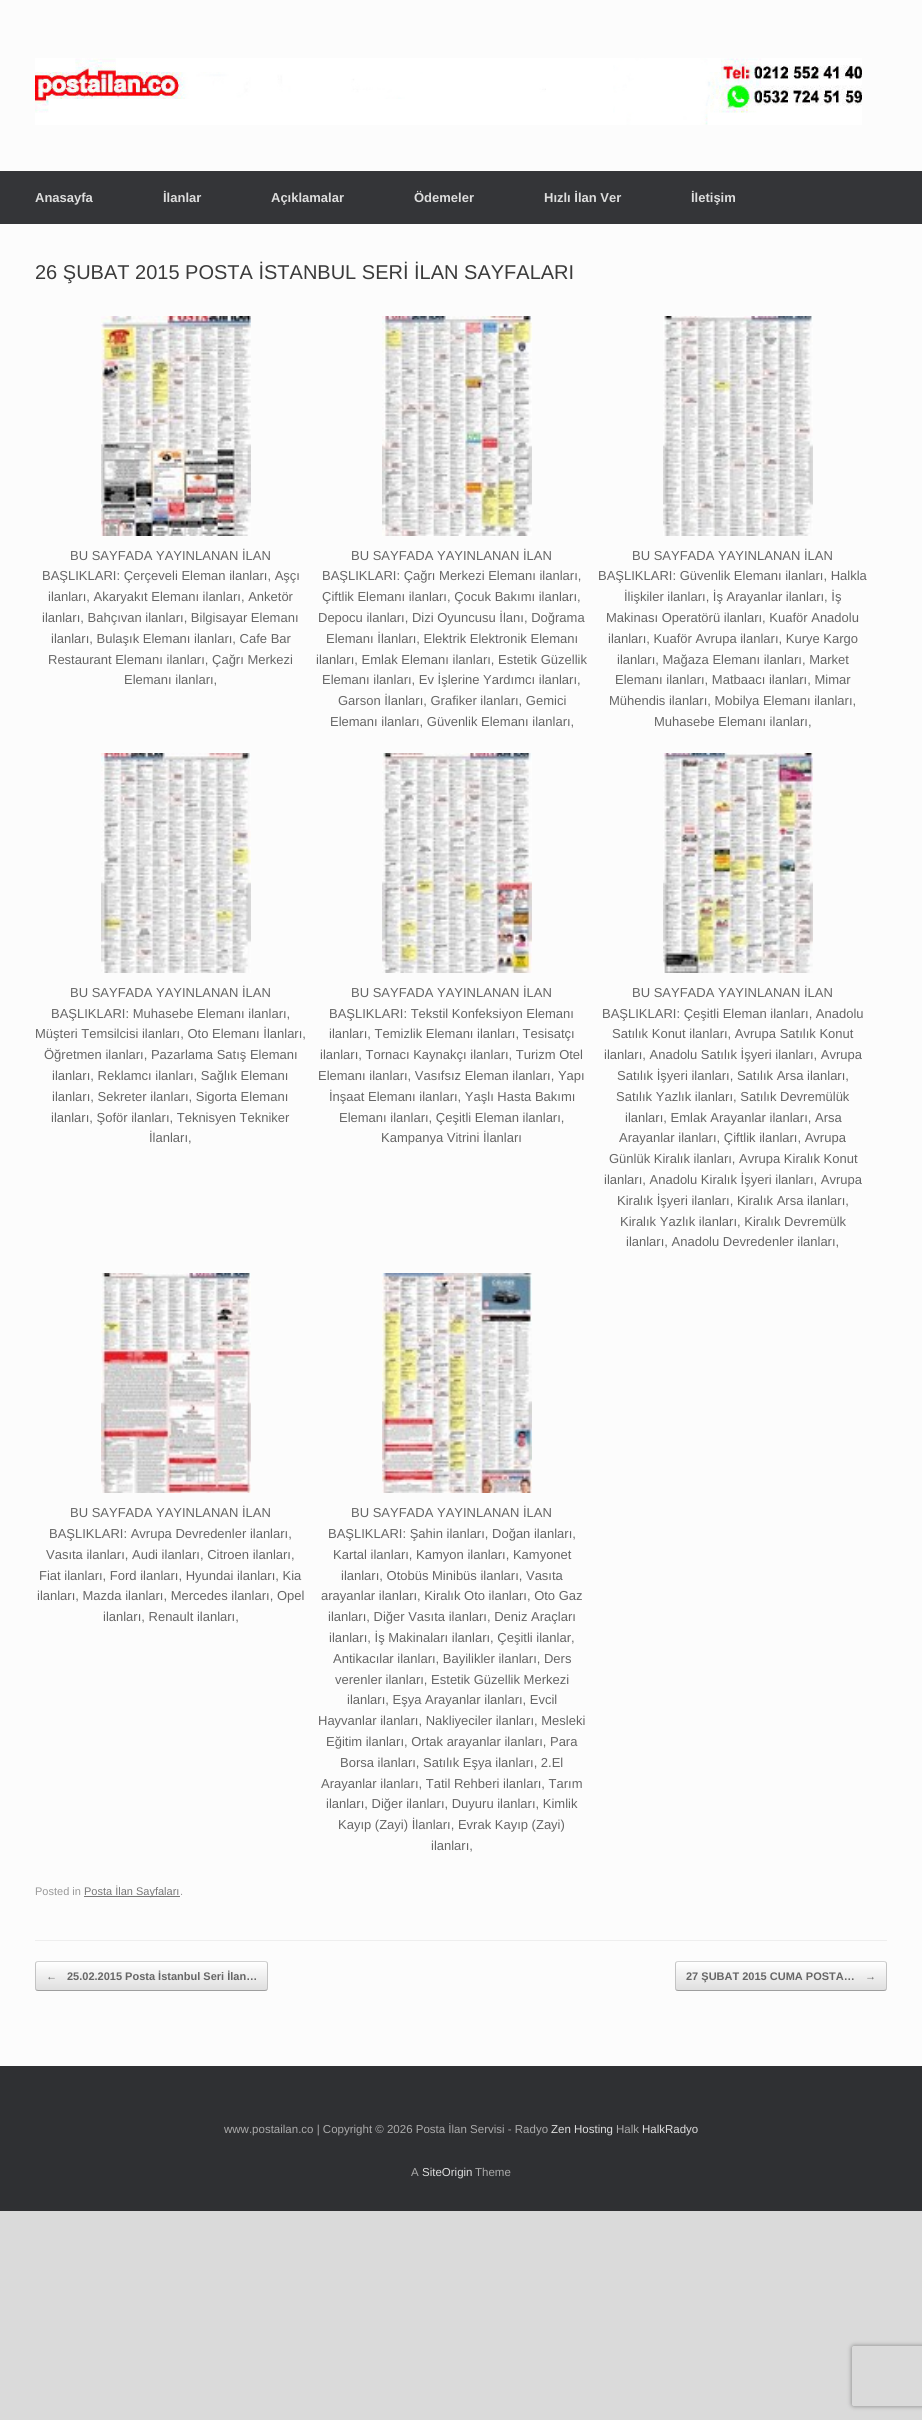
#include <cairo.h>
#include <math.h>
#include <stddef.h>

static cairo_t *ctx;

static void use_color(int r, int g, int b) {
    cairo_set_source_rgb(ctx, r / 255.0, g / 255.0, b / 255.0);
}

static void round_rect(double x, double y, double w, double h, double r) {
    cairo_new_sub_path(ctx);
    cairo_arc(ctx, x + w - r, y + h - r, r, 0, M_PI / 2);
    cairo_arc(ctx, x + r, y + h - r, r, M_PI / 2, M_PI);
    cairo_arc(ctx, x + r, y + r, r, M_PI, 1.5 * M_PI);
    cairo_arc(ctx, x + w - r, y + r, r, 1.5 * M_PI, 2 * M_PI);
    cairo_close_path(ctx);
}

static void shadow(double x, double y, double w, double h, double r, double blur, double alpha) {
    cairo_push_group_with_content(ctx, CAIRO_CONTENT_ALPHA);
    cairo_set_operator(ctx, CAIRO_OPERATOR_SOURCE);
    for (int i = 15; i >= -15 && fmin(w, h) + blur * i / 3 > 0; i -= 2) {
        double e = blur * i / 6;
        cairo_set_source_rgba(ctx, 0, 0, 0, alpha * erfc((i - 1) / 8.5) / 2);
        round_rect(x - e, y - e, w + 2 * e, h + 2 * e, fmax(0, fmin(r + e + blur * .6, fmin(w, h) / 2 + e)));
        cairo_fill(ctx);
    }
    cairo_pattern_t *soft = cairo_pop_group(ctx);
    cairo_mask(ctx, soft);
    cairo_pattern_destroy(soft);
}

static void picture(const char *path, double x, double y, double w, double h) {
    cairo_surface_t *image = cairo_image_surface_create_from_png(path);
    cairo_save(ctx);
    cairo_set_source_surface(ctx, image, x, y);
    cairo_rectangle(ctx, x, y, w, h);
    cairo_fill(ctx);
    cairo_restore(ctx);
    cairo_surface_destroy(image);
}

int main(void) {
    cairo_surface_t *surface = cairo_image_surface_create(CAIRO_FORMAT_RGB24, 922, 2420);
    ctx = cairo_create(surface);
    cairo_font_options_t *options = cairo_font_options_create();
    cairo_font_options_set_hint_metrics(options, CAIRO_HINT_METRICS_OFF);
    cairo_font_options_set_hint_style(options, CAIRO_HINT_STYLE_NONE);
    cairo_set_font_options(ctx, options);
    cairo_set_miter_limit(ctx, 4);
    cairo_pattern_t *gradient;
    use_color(218, 218, 218);
    cairo_paint(ctx);
    use_color(252, 252, 252);
    cairo_rectangle(ctx, 0, 0, 922, 171);
    cairo_fill(ctx);
    picture("img1.png", 35, 58, 827, 67);
    use_color(52, 53, 56);
    cairo_rectangle(ctx, 0, 171, 922, 53);
    cairo_fill(ctx);
    cairo_select_font_face(ctx, "Liberation Sans", CAIRO_FONT_SLANT_NORMAL, CAIRO_FONT_WEIGHT_BOLD);
    cairo_set_font_size(ctx, 13);
    use_color(221, 221, 221);
    cairo_move_to(ctx, 35, 202);
    cairo_show_text(ctx, "Anasayfa");
    cairo_move_to(ctx, 163, 202);
    cairo_show_text(ctx, "İlanlar");
    cairo_move_to(ctx, 271, 202);
    cairo_show_text(ctx, "Açıklamalar");
    cairo_move_to(ctx, 414, 202);
    cairo_show_text(ctx, "Ödemeler");
    cairo_move_to(ctx, 544, 202);
    cairo_show_text(ctx, "Hızlı İlan Ver");
    cairo_move_to(ctx, 691, 202);
    cairo_show_text(ctx, "İletişim");
    use_color(252, 252, 252);
    cairo_rectangle(ctx, 0, 224, 922, 1842);
    cairo_fill(ctx);
    use_color(238, 238, 238);
    cairo_rectangle(ctx, 35, 1940, 852, 1);
    cairo_fill(ctx);
    cairo_select_font_face(ctx, "Liberation Sans", CAIRO_FONT_SLANT_NORMAL, CAIRO_FONT_WEIGHT_NORMAL);
    cairo_set_font_size(ctx, 20);
    use_color(59, 59, 59);
    cairo_move_to(ctx, 35, 279);
    cairo_show_text(ctx, "26 ŞUBAT 2015 POSTA İSTANBUL SERİ İLAN SAYFALARI");
    picture("img2.png", 101, 316, 150, 220);
    cairo_set_font_size(ctx, 13);
    use_color(102, 102, 102);
    cairo_move_to(ctx, 70, 560);
    cairo_show_text(ctx, "BU SAYFADA YAYINLANAN İLAN");
    cairo_move_to(ctx, 42, 580);
    cairo_show_text(ctx, "BAŞLIKLARI: Çerçeveli Eleman ilanları, Aşçı");
    cairo_move_to(ctx, 48, 601);
    cairo_show_text(ctx, "ilanları, Akaryakıt Elemanı ilanları, Anketör");
    cairo_move_to(ctx, 42, 622);
    cairo_show_text(ctx, "ilanları, Bahçıvan ilanları, Bilgisayar Elemanı");
    cairo_move_to(ctx, 51, 643);
    cairo_show_text(ctx, "ilanları, Bulaşık Elemanı ilanları, Cafe Bar");
    cairo_move_to(ctx, 48, 664);
    cairo_show_text(ctx, "Restaurant Elemanı ilanları, Çağrı Merkezi");
    cairo_move_to(ctx, 124, 684);
    cairo_show_text(ctx, "Elemanı ilanları,");
    picture("img3.png", 382, 316, 150, 220);
    cairo_move_to(ctx, 351, 560);
    cairo_show_text(ctx, "BU SAYFADA YAYINLANAN İLAN");
    cairo_move_to(ctx, 322, 580);
    cairo_show_text(ctx, "BAŞLIKLARI: Çağrı Merkezi Elemanı ilanları,");
    cairo_move_to(ctx, 322, 601);
    cairo_show_text(ctx, "Çiftlik Elemanı ilanları, Çocuk Bakımı ilanları,");
    cairo_move_to(ctx, 318, 622);
    cairo_show_text(ctx, "Depocu ilanları, Dizi Oyuncusu İlanı, Doğrama");
    cairo_move_to(ctx, 326, 643);
    cairo_show_text(ctx, "Elemanı İlanları, Elektrik Elektronik Elemanı");
    cairo_move_to(ctx, 316, 664);
    cairo_show_text(ctx, "ilanları, Emlak Elemanı ilanları, Estetik Güzellik");
    cairo_move_to(ctx, 322, 684);
    cairo_show_text(ctx, "Elemanı ilanları, Ev İşlerine Yardımcı ilanları,");
    cairo_move_to(ctx, 338, 705);
    cairo_show_text(ctx, "Garson İlanları, Grafiker ilanları, Gemici");
    cairo_move_to(ctx, 330, 726);
    cairo_show_text(ctx, "Elemanı ilanları, Güvenlik Elemanı ilanları,");
    picture("img4.png", 663, 316, 150, 220);
    cairo_move_to(ctx, 632, 560);
    cairo_show_text(ctx, "BU SAYFADA YAYINLANAN İLAN");
    cairo_move_to(ctx, 598, 580);
    cairo_show_text(ctx, "BAŞLIKLARI: Güvenlik Elemanı ilanları, Halkla");
    cairo_move_to(ctx, 624, 601);
    cairo_show_text(ctx, "İlişkiler ilanları, İş Arayanlar ilanları, İş");
    cairo_move_to(ctx, 606, 622);
    cairo_show_text(ctx, "Makinası Operatörü ilanları, Kuaför Anadolu");
    cairo_move_to(ctx, 608, 643);
    cairo_show_text(ctx, "ilanları, Kuaför Avrupa ilanları, Kurye Kargo");
    cairo_move_to(ctx, 617, 664);
    cairo_show_text(ctx, "ilanları, Mağaza Elemanı ilanları, Market");
    cairo_move_to(ctx, 615, 684);
    cairo_show_text(ctx, "Elemanı ilanları, Matbaacı ilanları, Mimar");
    cairo_move_to(ctx, 609, 705);
    cairo_show_text(ctx, "Mühendis ilanları, Mobilya Elemanı ilanları,");
    cairo_move_to(ctx, 654, 726);
    cairo_show_text(ctx, "Muhasebe Elemanı ilanları,");
    picture("img5.png", 101, 753, 150, 220);
    cairo_move_to(ctx, 70, 997);
    cairo_show_text(ctx, "BU SAYFADA YAYINLANAN İLAN");
    cairo_move_to(ctx, 51, 1018);
    cairo_show_text(ctx, "BAŞLIKLARI: Muhasebe Elemanı ilanları,");
    cairo_move_to(ctx, 35, 1038);
    cairo_show_text(ctx, "Müşteri Temsilcisi ilanları, Oto Elemanı İlanları,");
    cairo_move_to(ctx, 44, 1059);
    cairo_show_text(ctx, "Öğretmen ilanları, Pazarlama Satış Elemanı");
    cairo_move_to(ctx, 52, 1080);
    cairo_show_text(ctx, "ilanları, Reklamcı ilanları, Sağlık Elemanı");
    cairo_move_to(ctx, 52, 1101);
    cairo_show_text(ctx, "ilanları, Sekreter ilanları, Sigorta Elemanı");
    cairo_move_to(ctx, 51, 1122);
    cairo_show_text(ctx, "ilanları, Şoför ilanları, Teknisyen Tekniker");
    cairo_move_to(ctx, 149, 1142);
    cairo_show_text(ctx, "İlanları,");
    picture("img6.png", 382, 753, 150, 220);
    cairo_move_to(ctx, 351, 997);
    cairo_show_text(ctx, "BU SAYFADA YAYINLANAN İLAN");
    cairo_move_to(ctx, 329, 1018);
    cairo_show_text(ctx, "BAŞLIKLARI: Tekstil Konfeksiyon Elemanı");
    cairo_move_to(ctx, 329, 1038);
    cairo_show_text(ctx, "ilanları, Temizlik Elemanı ilanları, Tesisatçı");
    cairo_move_to(ctx, 320, 1059);
    cairo_show_text(ctx, "ilanları, Tornacı Kaynakçı ilanları, Turizm Otel");
    cairo_move_to(ctx, 318, 1080);
    cairo_show_text(ctx, "Elemanı ilanları, Vasıfsız Eleman ilanları, Yapı");
    cairo_move_to(ctx, 329, 1101);
    cairo_show_text(ctx, "İnşaat Elemanı ilanları, Yaşlı Hasta Bakımı");
    cairo_move_to(ctx, 339, 1122);
    cairo_show_text(ctx, "Elemanı ilanları, Çeşitli Eleman ilanları,");
    cairo_move_to(ctx, 381, 1142);
    cairo_show_text(ctx, "Kampanya Vitrini İlanları");
    picture("img7.png", 663, 753, 150, 220);
    cairo_move_to(ctx, 632, 997);
    cairo_show_text(ctx, "BU SAYFADA YAYINLANAN İLAN");
    cairo_move_to(ctx, 602, 1018);
    cairo_show_text(ctx, "BAŞLIKLARI: Çeşitli Eleman ilanları, Anadolu");
    cairo_move_to(ctx, 612, 1038);
    cairo_show_text(ctx, "Satılık Konut ilanları, Avrupa Satılık Konut");
    cairo_move_to(ctx, 604, 1059);
    cairo_show_text(ctx, "ilanları, Anadolu Satılık İşyeri ilanları, Avrupa");
    cairo_move_to(ctx, 617, 1080);
    cairo_show_text(ctx, "Satılık İşyeri ilanları, Satılık Arsa ilanları,");
    cairo_move_to(ctx, 616, 1101);
    cairo_show_text(ctx, "Satılık Yazlık ilanları, Satılık Devremülük");
    cairo_move_to(ctx, 625, 1122);
    cairo_show_text(ctx, "ilanları, Emlak Arayanlar ilanları, Arsa");
    cairo_move_to(ctx, 619, 1142);
    cairo_show_text(ctx, "Arayanlar ilanları, Çiftlik ilanları, Avrupa");
    cairo_move_to(ctx, 609, 1163);
    cairo_show_text(ctx, "Günlük Kiralık ilanları, Avrupa Kiralık Konut");
    cairo_move_to(ctx, 604, 1184);
    cairo_show_text(ctx, "ilanları, Anadolu Kiralık İşyeri ilanları, Avrupa");
    cairo_move_to(ctx, 617, 1205);
    cairo_show_text(ctx, "Kiralık İşyeri ilanları, Kiralık Arsa ilanları,");
    cairo_move_to(ctx, 620, 1226);
    cairo_show_text(ctx, "Kiralık Yazlık ilanları, Kiralık Devremülk");
    cairo_move_to(ctx, 626, 1246);
    cairo_show_text(ctx, "ilanları, Anadolu Devredenler ilanları,");
    picture("img8.png", 101, 1273, 150, 220);
    cairo_move_to(ctx, 70, 1517);
    cairo_show_text(ctx, "BU SAYFADA YAYINLANAN İLAN");
    cairo_move_to(ctx, 49, 1538);
    cairo_show_text(ctx, "BAŞLIKLARI: Avrupa Devredenler ilanları,");
    cairo_move_to(ctx, 46, 1559);
    cairo_show_text(ctx, "Vasıta ilanları, Audi ilanları, Citroen ilanları,");
    cairo_move_to(ctx, 39, 1580);
    cairo_show_text(ctx, "Fiat ilanları, Ford ilanları, Hyundai ilanları, Kia");
    cairo_move_to(ctx, 37, 1600);
    cairo_show_text(ctx, "ilanları, Mazda ilanları, Mercedes ilanları, Opel");
    cairo_move_to(ctx, 103, 1621);
    cairo_show_text(ctx, "ilanları, Renault ilanları,");
    picture("img9.png", 382, 1273, 150, 220);
    cairo_move_to(ctx, 351, 1517);
    cairo_show_text(ctx, "BU SAYFADA YAYINLANAN İLAN");
    cairo_move_to(ctx, 328, 1538);
    cairo_show_text(ctx, "BAŞLIKLARI: Şahin ilanları, Doğan ilanları,");
    cairo_move_to(ctx, 333, 1559);
    cairo_show_text(ctx, "Kartal ilanları, Kamyon ilanları, Kamyonet");
    cairo_move_to(ctx, 341, 1580);
    cairo_show_text(ctx, "ilanları, Otobüs Minibüs ilanları, Vasıta");
    cairo_move_to(ctx, 321, 1600);
    cairo_show_text(ctx, "arayanlar ilanları, Kiralık Oto ilanları, Oto Gaz");
    cairo_move_to(ctx, 328, 1621);
    cairo_show_text(ctx, "ilanları, Diğer Vasıta ilanları, Deniz Araçları");
    cairo_move_to(ctx, 329, 1642);
    cairo_show_text(ctx, "ilanları, İş Makinaları ilanları, Çeşitli ilanlar,");
    cairo_move_to(ctx, 333, 1663);
    cairo_show_text(ctx, "Antikacılar ilanları, Bayilikler ilanları, Ders");
    cairo_move_to(ctx, 335, 1684);
    cairo_show_text(ctx, "verenler ilanları, Estetik Güzellik Merkezi");
    cairo_move_to(ctx, 347, 1704);
    cairo_show_text(ctx, "ilanları, Eşya Arayanlar ilanları, Evcil");
    cairo_move_to(ctx, 318, 1725);
    cairo_show_text(ctx, "Hayvanlar ilanları, Nakliyeciler ilanları, Mesleki");
    cairo_move_to(ctx, 326, 1746);
    cairo_show_text(ctx, "Eğitim ilanları, Ortak arayanlar ilanları, Para");
    cairo_move_to(ctx, 340, 1767);
    cairo_show_text(ctx, "Borsa ilanları, Satılık Eşya ilanları, 2.El");
    cairo_move_to(ctx, 321, 1788);
    cairo_show_text(ctx, "Arayanlar ilanları, Tatil Rehberi ilanları, Tarım");
    cairo_move_to(ctx, 326, 1808);
    cairo_show_text(ctx, "ilanları, Diğer ilanları, Duyuru ilanları, Kimlik");
    cairo_move_to(ctx, 338, 1829);
    cairo_show_text(ctx, "Kayıp (Zayi) İlanları, Evrak Kayıp (Zayi)");
    cairo_move_to(ctx, 431, 1850);
    cairo_show_text(ctx, "ilanları,");
    cairo_set_font_size(ctx, 11);
    use_color(153, 153, 153);
    cairo_move_to(ctx, 35, 1895);
    cairo_show_text(ctx, "Posted in");
    use_color(119, 119, 119);
    cairo_rectangle(ctx, 84, 1896, 96, 1);
    cairo_fill(ctx);
    cairo_move_to(ctx, 84, 1895);
    cairo_show_text(ctx, "Posta İlan Sayfaları");
    use_color(153, 153, 153);
    cairo_move_to(ctx, 180, 1895);
    cairo_show_text(ctx, ".");
    cairo_save(ctx);
    round_rect(35, 1961, 233, 30, 3);
    cairo_clip(ctx);
    gradient = cairo_pattern_create_linear(36, 1990, 36, 1962);
    cairo_pattern_add_color_stop_rgba(gradient, 0, 0.875, 0.875, 0.875, 1);
    cairo_pattern_add_color_stop_rgba(gradient, 1, 1, 1, 1, 1);
    cairo_set_source(ctx, gradient);
    cairo_pattern_destroy(gradient);
    cairo_rectangle(ctx, 35, 1962, 233, 28);
    cairo_fill(ctx);
    cairo_restore(ctx);
    cairo_new_path(ctx);
    cairo_move_to(ctx, 36, 1962);
    cairo_line_to(ctx, 38, 1961.5);
    cairo_line_to(ctx, 265, 1961.5);
    cairo_line_to(ctx, 267, 1962);
    use_color(210, 210, 210);
    cairo_set_line_width(ctx, 1);
    cairo_stroke(ctx);
    cairo_new_path(ctx);
    cairo_move_to(ctx, 267, 1962);
    cairo_curve_to(ctx, 267, 1962.5, 267.5, 1963.5, 267.5, 1964);
    cairo_line_to(ctx, 267.5, 1988);
    cairo_curve_to(ctx, 267.5, 1988.5, 267, 1989.5, 267, 1990);
    use_color(195, 195, 195);
    cairo_stroke(ctx);
    cairo_new_path(ctx);
    cairo_move_to(ctx, 267, 1990);
    cairo_line_to(ctx, 265, 1990.5);
    cairo_line_to(ctx, 38, 1990.5);
    cairo_line_to(ctx, 36, 1990);
    use_color(159, 159, 159);
    cairo_stroke(ctx);
    cairo_new_path(ctx);
    cairo_move_to(ctx, 36, 1990);
    cairo_curve_to(ctx, 36, 1989.5, 35.5, 1988.5, 35.5, 1988);
    cairo_line_to(ctx, 35.5, 1964);
    cairo_curve_to(ctx, 35.5, 1963.5, 36, 1962.5, 36, 1962);
    use_color(195, 195, 195);
    cairo_stroke(ctx);
    cairo_select_font_face(ctx, "Liberation Sans", CAIRO_FONT_SLANT_NORMAL, CAIRO_FONT_WEIGHT_BOLD);
    use_color(102, 102, 102);
    cairo_move_to(ctx, 46, 1980);
    cairo_show_text(ctx, "←");
    cairo_move_to(ctx, 67, 1980);
    cairo_show_text(ctx, "25.02.2015 Posta İstanbul Seri İlan…");
    cairo_save(ctx);
    round_rect(675, 1961, 212, 30, 3);
    cairo_clip(ctx);
    gradient = cairo_pattern_create_linear(676, 1990, 676, 1962);
    cairo_pattern_add_color_stop_rgba(gradient, 0, 0.875, 0.875, 0.875, 1);
    cairo_pattern_add_color_stop_rgba(gradient, 1, 1, 1, 1, 1);
    cairo_set_source(ctx, gradient);
    cairo_pattern_destroy(gradient);
    cairo_rectangle(ctx, 675, 1962, 212, 28);
    cairo_fill(ctx);
    cairo_restore(ctx);
    cairo_new_path(ctx);
    cairo_move_to(ctx, 676, 1962);
    cairo_line_to(ctx, 678, 1961.5);
    cairo_line_to(ctx, 884, 1961.5);
    cairo_line_to(ctx, 886, 1962);
    use_color(210, 210, 210);
    cairo_stroke(ctx);
    cairo_new_path(ctx);
    cairo_move_to(ctx, 886, 1962);
    cairo_curve_to(ctx, 886, 1962.5, 886.5, 1963.5, 886.5, 1964);
    cairo_line_to(ctx, 886.5, 1988);
    cairo_curve_to(ctx, 886.5, 1988.5, 886, 1989.5, 886, 1990);
    use_color(195, 195, 195);
    cairo_stroke(ctx);
    cairo_new_path(ctx);
    cairo_move_to(ctx, 886, 1990);
    cairo_line_to(ctx, 884, 1990.5);
    cairo_line_to(ctx, 678, 1990.5);
    cairo_line_to(ctx, 676, 1990);
    use_color(159, 159, 159);
    cairo_stroke(ctx);
    cairo_new_path(ctx);
    cairo_move_to(ctx, 676, 1990);
    cairo_curve_to(ctx, 676, 1989.5, 675.5, 1988.5, 675.5, 1988);
    cairo_line_to(ctx, 675.5, 1964);
    cairo_curve_to(ctx, 675.5, 1963.5, 676, 1962.5, 676, 1962);
    use_color(195, 195, 195);
    cairo_stroke(ctx);
    use_color(102, 102, 102);
    cairo_move_to(ctx, 686, 1980);
    cairo_show_text(ctx, "27 ŞUBAT 2015 CUMA POSTA…");
    cairo_move_to(ctx, 865, 1980);
    cairo_show_text(ctx, "→");
    use_color(47, 48, 51);
    cairo_rectangle(ctx, 0, 2066, 922, 145);
    cairo_fill(ctx);
    cairo_select_font_face(ctx, "Liberation Sans", CAIRO_FONT_SLANT_NORMAL, CAIRO_FONT_WEIGHT_NORMAL);
    cairo_set_font_size(ctx, 11.5);
    use_color(170, 170, 170);
    cairo_move_to(ctx, 224, 2133);
    cairo_show_text(ctx, "www.postailan.co | Copyright © 2026 Posta İlan Servisi - Radyo");
    use_color(221, 221, 221);
    cairo_move_to(ctx, 551, 2133);
    cairo_show_text(ctx, "Zen Hosting");
    use_color(170, 170, 170);
    cairo_move_to(ctx, 616, 2133);
    cairo_show_text(ctx, "Halk");
    use_color(221, 221, 221);
    cairo_move_to(ctx, 642, 2133);
    cairo_show_text(ctx, "HalkRadyo");
    use_color(170, 170, 170);
    cairo_move_to(ctx, 411, 2176);
    cairo_show_text(ctx, "A");
    use_color(221, 221, 221);
    cairo_move_to(ctx, 422, 2176);
    cairo_show_text(ctx, "SiteOrigin");
    use_color(170, 170, 170);
    cairo_move_to(ctx, 475, 2176);
    cairo_show_text(ctx, "Theme");
    cairo_save(ctx);
    cairo_set_fill_rule(ctx, CAIRO_FILL_RULE_EVEN_ODD);
    cairo_new_path(ctx);
    cairo_move_to(ctx, 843, 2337);
    cairo_line_to(ctx, 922, 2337);
    cairo_line_to(ctx, 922, 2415);
    cairo_line_to(ctx, 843, 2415);
    cairo_close_path(ctx);
    cairo_move_to(ctx, 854, 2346);
    cairo_line_to(ctx, 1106, 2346);
    cairo_curve_to(ctx, 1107, 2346, 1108, 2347, 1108, 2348);
    cairo_line_to(ctx, 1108, 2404);
    cairo_curve_to(ctx, 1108, 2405, 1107, 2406, 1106, 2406);
    cairo_line_to(ctx, 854, 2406);
    cairo_curve_to(ctx, 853, 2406, 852, 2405, 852, 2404);
    cairo_line_to(ctx, 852, 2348);
    cairo_curve_to(ctx, 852, 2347, 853, 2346, 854, 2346);
    cairo_close_path(ctx);
    cairo_clip(ctx);
    use_color(128, 128, 128);
    shadow(852, 2346, 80, 60, 2, 2.5, 1);
    cairo_restore(ctx);
    cairo_surface_write_to_png(surface, "result.png");
    cairo_font_options_destroy(options);
    cairo_destroy(ctx);
    cairo_surface_destroy(surface);
    return 0;
}
